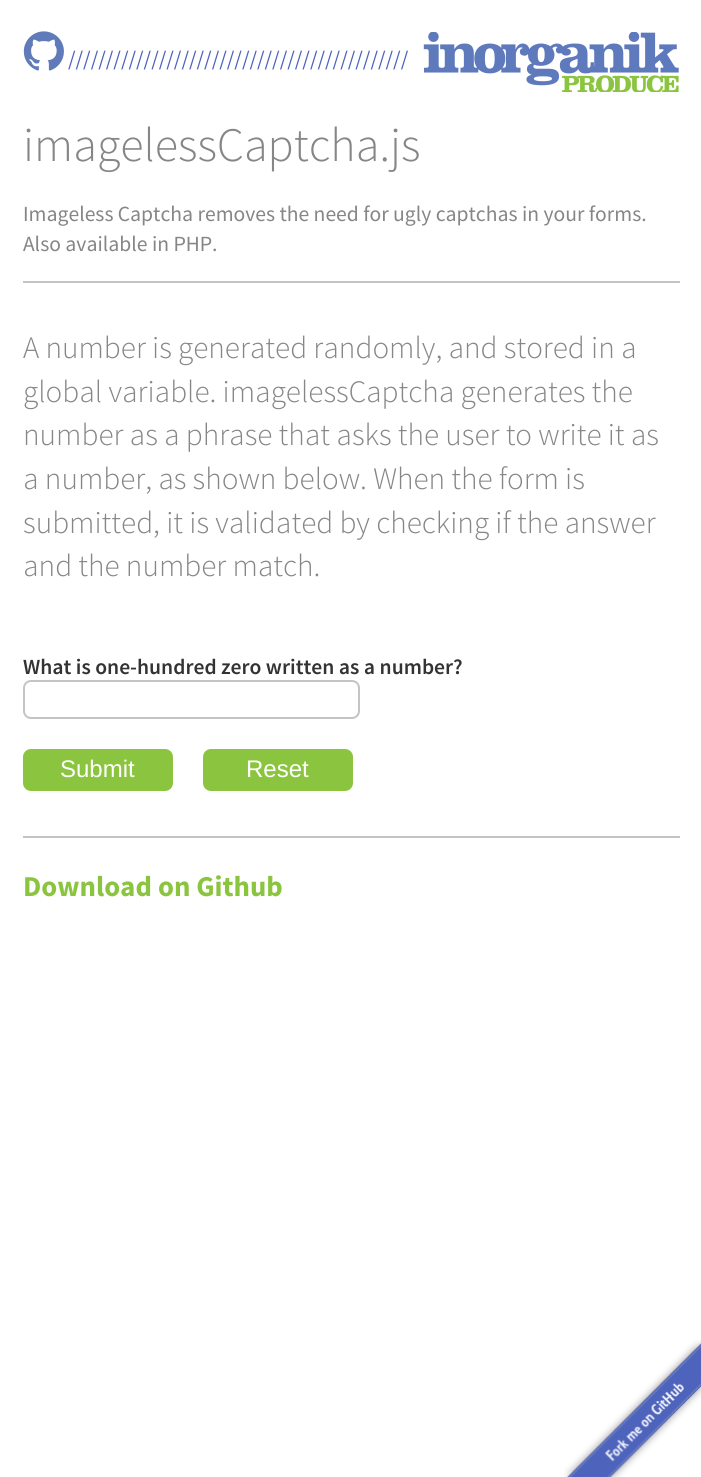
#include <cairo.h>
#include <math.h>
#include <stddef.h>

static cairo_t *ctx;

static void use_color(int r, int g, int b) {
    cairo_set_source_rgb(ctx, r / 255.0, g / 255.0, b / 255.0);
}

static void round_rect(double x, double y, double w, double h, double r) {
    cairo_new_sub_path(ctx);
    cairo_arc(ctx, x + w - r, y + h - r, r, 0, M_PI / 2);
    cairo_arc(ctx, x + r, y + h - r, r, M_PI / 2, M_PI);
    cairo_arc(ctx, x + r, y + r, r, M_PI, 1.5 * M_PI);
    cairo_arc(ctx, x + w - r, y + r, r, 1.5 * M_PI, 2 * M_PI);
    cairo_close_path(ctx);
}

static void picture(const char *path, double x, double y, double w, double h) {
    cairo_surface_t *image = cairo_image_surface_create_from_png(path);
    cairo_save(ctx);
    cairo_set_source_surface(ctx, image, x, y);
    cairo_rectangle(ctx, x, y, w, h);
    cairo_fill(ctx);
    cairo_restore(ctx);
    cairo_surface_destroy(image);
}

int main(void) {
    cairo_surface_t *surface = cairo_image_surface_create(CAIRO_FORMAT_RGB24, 701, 1477);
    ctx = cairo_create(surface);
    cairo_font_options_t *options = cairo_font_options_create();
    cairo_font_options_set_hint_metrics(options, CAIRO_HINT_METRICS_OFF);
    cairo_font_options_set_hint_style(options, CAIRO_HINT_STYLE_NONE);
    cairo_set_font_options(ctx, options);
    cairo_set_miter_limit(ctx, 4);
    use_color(255, 255, 255);
    cairo_paint(ctx);
    picture("img1.png", 23, 31, 41, 40);
    cairo_select_font_face(ctx, "Source Sans Pro", CAIRO_FONT_SLANT_NORMAL, CAIRO_FONT_WEIGHT_NORMAL);
    cairo_set_font_size(ctx, 21.6);
    use_color(77, 99, 188);
    cairo_move_to(ctx, 68, 66);
    cairo_show_text(ctx, "/////////////////////////////////////////////");
    picture("img2.png", 423, 32, 256, 60);
    use_color(196, 196, 196);
    cairo_rectangle(ctx, 23, 281, 657, 2);
    cairo_fill(ctx);
    cairo_select_font_face(ctx, "Source Sans Pro Light", CAIRO_FONT_SLANT_NORMAL, CAIRO_FONT_WEIGHT_NORMAL);
    cairo_set_font_size(ctx, 48);
    use_color(134, 134, 134);
    cairo_move_to(ctx, 23, 161);
    cairo_show_text(ctx, "imagelessCaptcha.js");
    cairo_select_font_face(ctx, "Source Sans Pro", CAIRO_FONT_SLANT_NORMAL, CAIRO_FONT_WEIGHT_NORMAL);
    cairo_set_font_size(ctx, 21.6);
    cairo_move_to(ctx, 23, 221);
    cairo_show_text(ctx, "Imageless Captcha removes the need for ugly captchas in your forms.");
    cairo_move_to(ctx, 23, 251);
    cairo_show_text(ctx, "Also available in PHP.");
    use_color(196, 196, 196);
    cairo_rectangle(ctx, 23, 836, 657, 2);
    cairo_fill(ctx);
    cairo_select_font_face(ctx, "Source Sans Pro Light", CAIRO_FONT_SLANT_NORMAL, CAIRO_FONT_WEIGHT_NORMAL);
    cairo_set_font_size(ctx, 31.2);
    use_color(134, 134, 134);
    cairo_move_to(ctx, 23, 358);
    cairo_show_text(ctx, "A number is generated randomly, and stored in a");
    cairo_move_to(ctx, 23, 402);
    cairo_show_text(ctx, "global variable. imagelessCaptcha generates the");
    cairo_move_to(ctx, 23, 445);
    cairo_show_text(ctx, "number as a phrase that asks the user to write it as");
    cairo_move_to(ctx, 23, 489);
    cairo_show_text(ctx, "a number, as shown below. When the form is");
    cairo_move_to(ctx, 23, 533);
    cairo_show_text(ctx, "submitted, it is validated by checking if the answer");
    cairo_move_to(ctx, 23, 576);
    cairo_show_text(ctx, "and the number match.");
    cairo_select_font_face(ctx, "Source Sans Pro SemiBold", CAIRO_FONT_SLANT_NORMAL, CAIRO_FONT_WEIGHT_NORMAL);
    cairo_set_font_size(ctx, 21.6);
    use_color(51, 51, 51);
    cairo_move_to(ctx, 23, 674);
    cairo_show_text(ctx, "What is one-hundred zero written as a number?");
    round_rect(24, 681, 335, 37, 7);
    use_color(196, 196, 196);
    cairo_stroke(ctx);
    use_color(139, 197, 63);
    round_rect(23, 749, 150, 42, 8);
    cairo_fill(ctx);
    cairo_select_font_face(ctx, "Liberation Sans", CAIRO_FONT_SLANT_NORMAL, CAIRO_FONT_WEIGHT_NORMAL);
    cairo_set_font_size(ctx, 24);
    use_color(255, 255, 255);
    cairo_move_to(ctx, 60, 777);
    cairo_show_text(ctx, "Submit");
    use_color(139, 197, 63);
    round_rect(203, 749, 150, 42, 8);
    cairo_fill(ctx);
    use_color(255, 255, 255);
    cairo_move_to(ctx, 246, 777);
    cairo_show_text(ctx, "Reset");
    cairo_select_font_face(ctx, "Source Sans Pro", CAIRO_FONT_SLANT_NORMAL, CAIRO_FONT_WEIGHT_BOLD);
    cairo_set_font_size(ctx, 28.75);
    use_color(139, 197, 63);
    cairo_move_to(ctx, 23, 896);
    cairo_show_text(ctx, "Download on Github");
    picture("img3.png", 564, 1340, 137, 137);
    cairo_surface_write_to_png(surface, "result.png");
    cairo_font_options_destroy(options);
    cairo_destroy(ctx);
    cairo_surface_destroy(surface);
    return 0;
}
